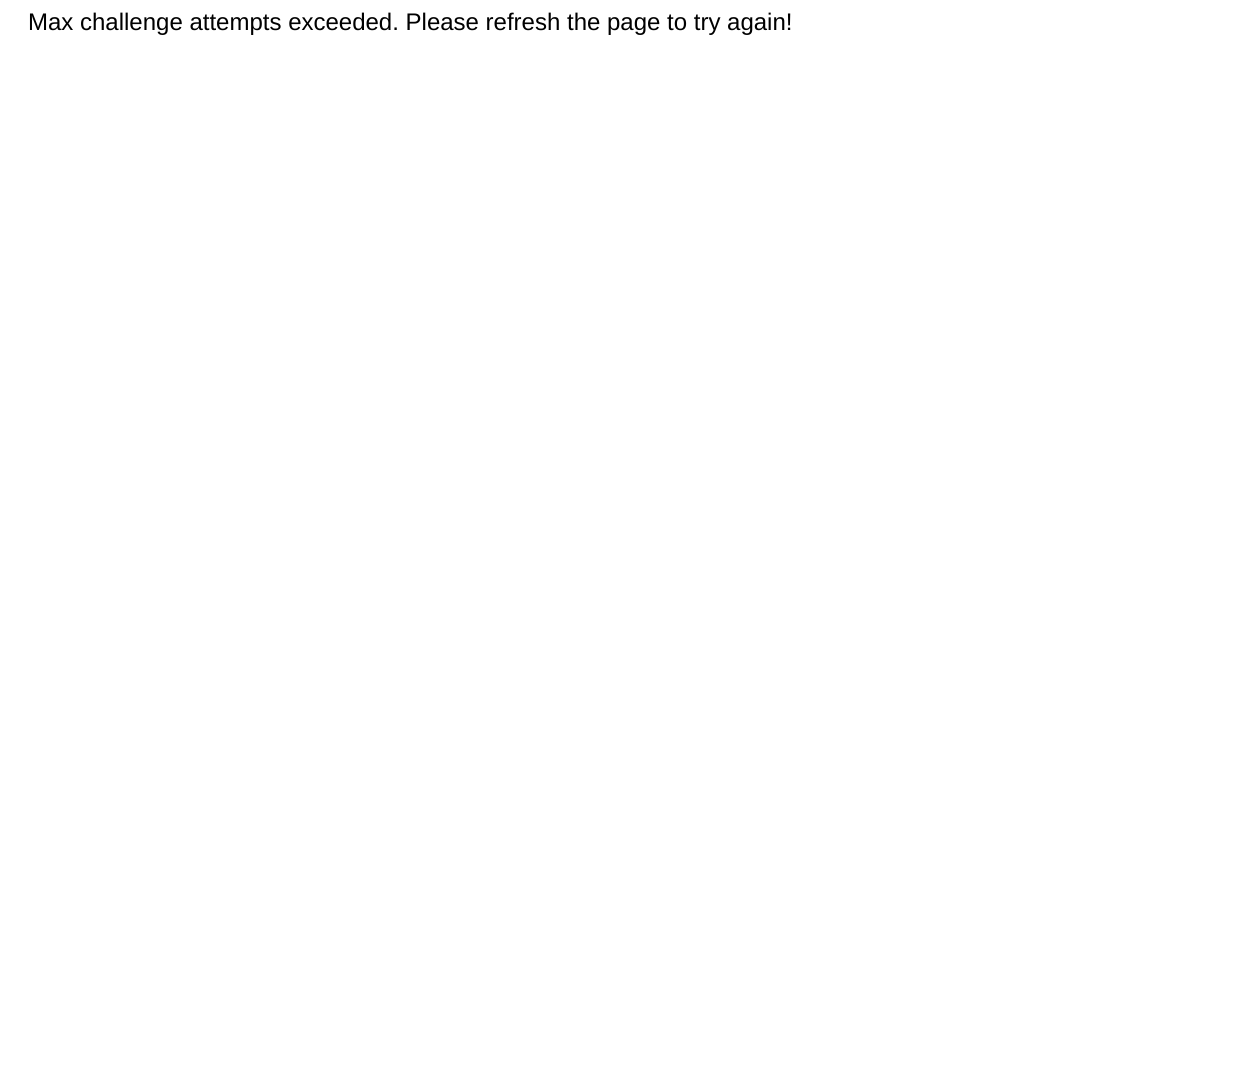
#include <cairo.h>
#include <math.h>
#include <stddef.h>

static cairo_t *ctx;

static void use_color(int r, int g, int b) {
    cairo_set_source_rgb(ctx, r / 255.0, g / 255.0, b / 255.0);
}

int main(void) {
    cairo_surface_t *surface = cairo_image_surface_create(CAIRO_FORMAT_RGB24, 1233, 1073);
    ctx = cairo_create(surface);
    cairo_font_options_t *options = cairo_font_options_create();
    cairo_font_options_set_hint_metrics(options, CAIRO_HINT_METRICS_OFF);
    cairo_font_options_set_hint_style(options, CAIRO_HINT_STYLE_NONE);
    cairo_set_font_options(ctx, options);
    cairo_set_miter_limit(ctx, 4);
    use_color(255, 255, 255);
    cairo_paint(ctx);
    cairo_select_font_face(ctx, "Liberation Sans", CAIRO_FONT_SLANT_NORMAL, CAIRO_FONT_WEIGHT_NORMAL);
    cairo_set_font_size(ctx, 24);
    use_color(0, 0, 0);
    cairo_move_to(ctx, 28, 30);
    cairo_show_text(ctx, "Max challenge attempts exceeded. Please refresh the page to try again!");
    cairo_surface_write_to_png(surface, "result.png");
    cairo_font_options_destroy(options);
    cairo_destroy(ctx);
    cairo_surface_destroy(surface);
    return 0;
}
